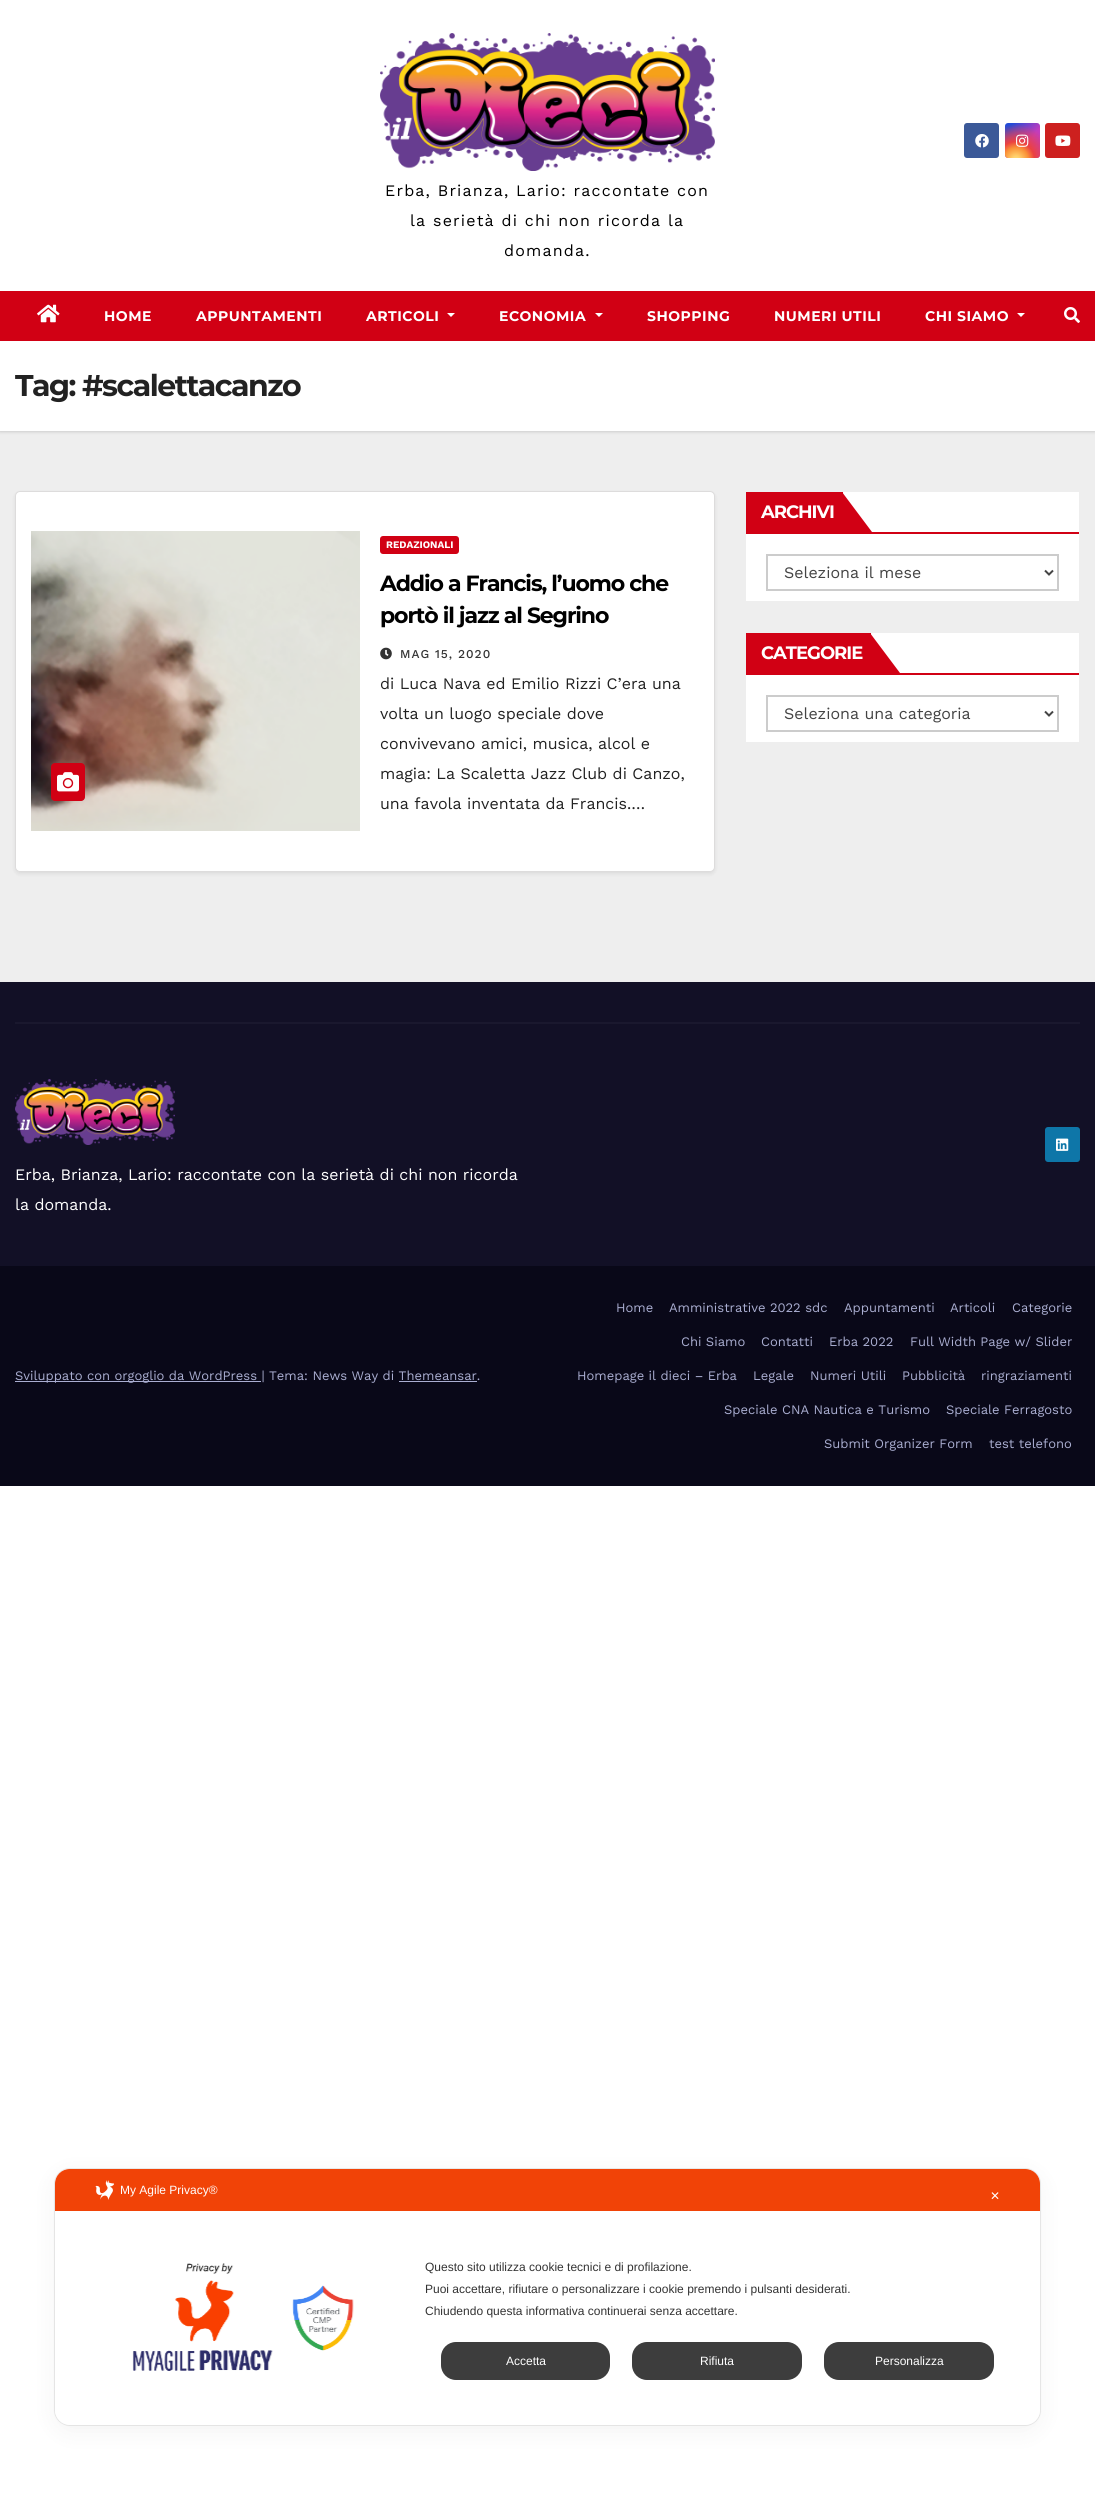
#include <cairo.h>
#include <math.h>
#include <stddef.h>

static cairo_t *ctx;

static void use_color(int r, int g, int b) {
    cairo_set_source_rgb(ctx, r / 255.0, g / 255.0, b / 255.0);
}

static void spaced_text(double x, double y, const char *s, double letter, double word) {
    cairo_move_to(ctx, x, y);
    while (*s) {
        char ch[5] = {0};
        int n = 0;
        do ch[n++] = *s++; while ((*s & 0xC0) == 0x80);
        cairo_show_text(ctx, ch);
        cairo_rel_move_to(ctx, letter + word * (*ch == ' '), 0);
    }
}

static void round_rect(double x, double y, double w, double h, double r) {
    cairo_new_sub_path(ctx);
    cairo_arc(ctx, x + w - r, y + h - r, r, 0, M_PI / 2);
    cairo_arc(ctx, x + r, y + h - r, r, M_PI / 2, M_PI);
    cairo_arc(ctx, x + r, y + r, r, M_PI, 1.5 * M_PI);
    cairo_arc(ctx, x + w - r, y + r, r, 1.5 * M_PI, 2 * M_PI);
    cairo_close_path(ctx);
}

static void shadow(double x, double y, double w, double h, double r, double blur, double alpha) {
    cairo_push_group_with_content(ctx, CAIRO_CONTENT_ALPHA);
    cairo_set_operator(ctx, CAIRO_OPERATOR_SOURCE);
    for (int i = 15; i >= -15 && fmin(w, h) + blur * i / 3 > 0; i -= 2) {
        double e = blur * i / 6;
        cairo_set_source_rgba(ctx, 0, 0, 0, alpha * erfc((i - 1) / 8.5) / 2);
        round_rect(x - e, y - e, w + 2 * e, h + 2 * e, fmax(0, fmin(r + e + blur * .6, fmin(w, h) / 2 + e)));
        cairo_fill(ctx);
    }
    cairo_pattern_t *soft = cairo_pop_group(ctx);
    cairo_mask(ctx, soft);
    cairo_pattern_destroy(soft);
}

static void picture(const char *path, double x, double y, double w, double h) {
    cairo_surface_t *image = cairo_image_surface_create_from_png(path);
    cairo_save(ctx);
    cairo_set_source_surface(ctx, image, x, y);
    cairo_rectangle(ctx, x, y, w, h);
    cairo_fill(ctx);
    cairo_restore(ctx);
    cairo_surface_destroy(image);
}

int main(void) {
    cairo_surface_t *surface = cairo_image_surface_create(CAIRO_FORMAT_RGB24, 1095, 2500);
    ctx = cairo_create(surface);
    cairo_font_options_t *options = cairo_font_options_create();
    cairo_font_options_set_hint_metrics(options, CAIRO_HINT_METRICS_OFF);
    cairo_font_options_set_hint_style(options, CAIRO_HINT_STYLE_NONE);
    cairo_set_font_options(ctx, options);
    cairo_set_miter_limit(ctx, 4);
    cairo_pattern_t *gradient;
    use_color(255, 255, 255);
    cairo_paint(ctx);
    use_color(238, 238, 238);
    cairo_rectangle(ctx, 0, 431, 1095, 551);
    cairo_fill(ctx);
    use_color(59, 89, 152);
    round_rect(964, 123, 35, 35, 3);
    cairo_fill(ctx);
    picture("img1.png", 975, 134, 14, 14);
    gradient = cairo_pattern_create_linear(1005, 123, 1040, 158);
    cairo_pattern_add_color_stop_rgba(gradient, 0.12, 0.137, 0.294, 0.843, 1);
    cairo_pattern_add_color_stop_rgba(gradient, 0.58, 0.765, 0.235, 0.745, 1);
    cairo_set_source(ctx, gradient);
    cairo_pattern_destroy(gradient);
    round_rect(1005, 123, 35, 35, 3);
    cairo_fill(ctx);
    gradient = cairo_pattern_create_radial(1016, 160, 0, 1016, 160, 44);
    cairo_pattern_add_color_stop_rgba(gradient, 0, 1, 0.882, 0.49, 1);
    cairo_pattern_add_color_stop_rgba(gradient, 0.1, 1, 0.804, 0.412, 1);
    cairo_pattern_add_color_stop_rgba(gradient, 0.28, 0.98, 0.569, 0.216, 1);
    cairo_pattern_add_color_stop_rgba(gradient, 0.42, 0.922, 0.255, 0.255, 1);
    cairo_pattern_add_color_stop_rgba(gradient, 0.82, 0.922, 0.255, 0.255, 0);
    cairo_set_source(ctx, gradient);
    cairo_pattern_destroy(gradient);
    round_rect(1005, 123, 35, 35, 3);
    cairo_fill(ctx);
    picture("img2.png", 1016, 134, 13, 13);
    use_color(205, 32, 31);
    round_rect(1045, 123, 35, 35, 3);
    cairo_fill(ctx);
    picture("img3.png", 1055, 135, 16, 11);
    picture("img4.png", 380, 33, 335, 138);
    cairo_select_font_face(ctx, "Work Sans", CAIRO_FONT_SLANT_NORMAL, CAIRO_FONT_WEIGHT_NORMAL);
    cairo_set_font_size(ctx, 16);
    use_color(0, 0, 0);
    spaced_text(385, 196, "Erba, Brianza, Lario: raccontate con", 1.2, 0);
    spaced_text(410, 226, "la serietà di chi non ricorda la", 1.2, 0);
    spaced_text(504, 256, "domanda.", 1.2, 0);
    use_color(0, 0, 0);
    shadow(0, 342, 1095, 90, 0, 1.5, 0.15);
    use_color(209, 0, 20);
    cairo_rectangle(ctx, 0, 291, 1095, 50);
    cairo_fill(ctx);
    picture("img5.png", 37, 304, 23, 19);
    cairo_select_font_face(ctx, "Montserrat", CAIRO_FONT_SLANT_NORMAL, CAIRO_FONT_WEIGHT_BOLD);
    cairo_set_font_size(ctx, 14);
    use_color(255, 255, 255);
    spaced_text(104, 321, "HOME", 0.5, 0);
    spaced_text(196, 321, "APPUNTAMENTI", 0.5, 0);
    spaced_text(366, 321, "ARTICOLI", 0.5, 0);
    cairo_new_path(ctx);
    cairo_move_to(ctx, 447, 313);
    cairo_line_to(ctx, 455, 313);
    cairo_line_to(ctx, 451, 317);
    cairo_close_path(ctx);
    cairo_fill(ctx);
    spaced_text(499, 321, "ECONOMIA", 0.5, 0);
    cairo_new_path(ctx);
    cairo_move_to(ctx, 595, 313);
    cairo_line_to(ctx, 603, 313);
    cairo_line_to(ctx, 599, 317);
    cairo_close_path(ctx);
    cairo_fill(ctx);
    spaced_text(647, 321, "SHOPPING", 0.5, 0);
    spaced_text(774, 321, "NUMERI UTILI", 0.5, 0);
    spaced_text(925, 321, "CHI SIAMO", 0.5, 0);
    cairo_new_path(ctx);
    cairo_move_to(ctx, 1017, 313);
    cairo_line_to(ctx, 1025, 313);
    cairo_line_to(ctx, 1021, 317);
    cairo_close_path(ctx);
    cairo_fill(ctx);
    picture("img6.png", 1064, 307, 16, 16);
    cairo_rectangle(ctx, 0, 341, 1095, 90);
    cairo_fill(ctx);
    cairo_set_font_size(ctx, 30);
    use_color(34, 34, 34);
    spaced_text(15, 396, "Tag: #scalettacanzo", -1.5, 0);
    use_color(0, 0, 0);
    shadow(15, 493, 700, 381, 5, 2, 0.08);
    use_color(255, 255, 255);
    round_rect(15.5, 491.5, 699, 380, 4.5);
    cairo_fill_preserve(ctx);
    use_color(221, 220, 220);
    cairo_set_line_width(ctx, 1);
    cairo_stroke(ctx);
    picture("img7.png", 31, 531, 329, 300);
    use_color(209, 0, 20);
    round_rect(51, 763, 34, 38, 4);
    cairo_fill(ctx);
    picture("img8.png", 57, 772, 22, 20);
    round_rect(380, 536, 79, 18, 3);
    cairo_fill(ctx);
    cairo_select_font_face(ctx, "Work Sans", CAIRO_FONT_SLANT_NORMAL, CAIRO_FONT_WEIGHT_BOLD);
    cairo_set_font_size(ctx, 10);
    use_color(255, 255, 255);
    cairo_move_to(ctx, 386, 548);
    cairo_show_text(ctx, "REDAZIONALI");
    cairo_select_font_face(ctx, "Montserrat", CAIRO_FONT_SLANT_NORMAL, CAIRO_FONT_WEIGHT_BOLD);
    cairo_set_font_size(ctx, 22);
    use_color(0, 0, 0);
    spaced_text(380, 591, "Addio a Francis, l’uomo che", -1.1, 0);
    spaced_text(380, 623, "portò il jazz al Segrino", -1.1, 0);
    picture("img9.png", 380, 647, 12, 13);
    cairo_select_font_face(ctx, "Work Sans Medium", CAIRO_FONT_SLANT_NORMAL, CAIRO_FONT_WEIGHT_NORMAL);
    cairo_set_font_size(ctx, 12);
    use_color(51, 51, 51);
    spaced_text(400, 658, "MAG 15, 2020", 1, 0);
    cairo_select_font_face(ctx, "Work Sans", CAIRO_FONT_SLANT_NORMAL, CAIRO_FONT_WEIGHT_NORMAL);
    cairo_set_font_size(ctx, 16);
    use_color(34, 34, 34);
    cairo_move_to(ctx, 380, 689);
    cairo_show_text(ctx, "di Luca Nava ed Emilio Rizzi C’era una");
    cairo_move_to(ctx, 380, 719);
    cairo_show_text(ctx, "volta un luogo speciale dove");
    cairo_move_to(ctx, 380, 749);
    cairo_show_text(ctx, "convivevano amici, musica, alcol e");
    cairo_move_to(ctx, 380, 779);
    cairo_show_text(ctx, "magia: La Scaletta Jazz Club di Canzo,");
    cairo_move_to(ctx, 380, 809);
    cairo_show_text(ctx, "una favola inventata da Francis.…");
    use_color(255, 255, 255);
    cairo_rectangle(ctx, 746, 492, 333, 109);
    cairo_fill(ctx);
    use_color(209, 0, 20);
    cairo_rectangle(ctx, 746, 532, 333, 2);
    cairo_fill(ctx);
    cairo_rectangle(ctx, 746, 492, 97, 40);
    cairo_fill(ctx);
    cairo_select_font_face(ctx, "Montserrat", CAIRO_FONT_SLANT_NORMAL, CAIRO_FONT_WEIGHT_BOLD);
    cairo_set_font_size(ctx, 18);
    use_color(255, 255, 255);
    spaced_text(761, 518, "ARCHIVI", -1, 0);
    use_color(209, 0, 20);
    cairo_new_path(ctx);
    cairo_move_to(ctx, 842, 532);
    cairo_line_to(ctx, 842, 492);
    cairo_line_to(ctx, 872, 532);
    cairo_close_path(ctx);
    cairo_fill(ctx);
    cairo_rectangle(ctx, 767, 555, 291, 35);
    use_color(204, 204, 204);
    cairo_set_line_width(ctx, 2);
    cairo_stroke(ctx);
    cairo_new_path(ctx);
    cairo_move_to(ctx, 1045, 570.5);
    cairo_line_to(ctx, 1049, 574.5);
    cairo_line_to(ctx, 1053, 570.5);
    use_color(68, 68, 68);
    cairo_stroke(ctx);
    cairo_select_font_face(ctx, "Work Sans", CAIRO_FONT_SLANT_NORMAL, CAIRO_FONT_WEIGHT_NORMAL);
    cairo_set_font_size(ctx, 16);
    cairo_move_to(ctx, 784, 578);
    cairo_show_text(ctx, "Seleziona il mese");
    use_color(255, 255, 255);
    cairo_rectangle(ctx, 746, 633, 333, 109);
    cairo_fill(ctx);
    use_color(209, 0, 20);
    cairo_rectangle(ctx, 746, 673, 333, 2);
    cairo_fill(ctx);
    cairo_rectangle(ctx, 746, 633, 125, 40);
    cairo_fill(ctx);
    cairo_select_font_face(ctx, "Montserrat", CAIRO_FONT_SLANT_NORMAL, CAIRO_FONT_WEIGHT_BOLD);
    cairo_set_font_size(ctx, 18);
    use_color(255, 255, 255);
    spaced_text(761, 659, "CATEGORIE", -1, 0);
    use_color(209, 0, 20);
    cairo_new_path(ctx);
    cairo_move_to(ctx, 870, 673);
    cairo_line_to(ctx, 870, 633);
    cairo_line_to(ctx, 900, 673);
    cairo_close_path(ctx);
    cairo_fill(ctx);
    cairo_rectangle(ctx, 767, 696, 291, 35);
    use_color(204, 204, 204);
    cairo_stroke(ctx);
    cairo_new_path(ctx);
    cairo_move_to(ctx, 1045, 711.5);
    cairo_line_to(ctx, 1049, 715.5);
    cairo_line_to(ctx, 1053, 711.5);
    use_color(68, 68, 68);
    cairo_stroke(ctx);
    cairo_select_font_face(ctx, "Work Sans", CAIRO_FONT_SLANT_NORMAL, CAIRO_FONT_WEIGHT_NORMAL);
    cairo_set_font_size(ctx, 16);
    cairo_move_to(ctx, 784, 719);
    cairo_show_text(ctx, "Seleziona una categoria");
    use_color(18, 16, 38);
    cairo_rectangle(ctx, 0, 982, 1095, 284);
    cairo_fill(ctx);
    use_color(26, 24, 46);
    cairo_rectangle(ctx, 15, 1022, 1065, 2);
    cairo_fill(ctx);
    use_color(14, 118, 168);
    round_rect(1045, 1127, 35, 35, 3);
    cairo_fill(ctx);
    picture("img10.png", 1056, 1138, 13, 13);
    picture("img11.png", 15, 1079, 160, 66);
    use_color(255, 255, 255);
    cairo_move_to(ctx, 15, 1180);
    cairo_show_text(ctx, "Erba, Brianza, Lario: raccontate con la serietà di chi non ricorda");
    cairo_move_to(ctx, 15, 1210);
    cairo_show_text(ctx, "la domanda.");
    use_color(9, 8, 24);
    cairo_rectangle(ctx, 0, 1266, 1095, 220);
    cairo_fill(ctx);
    use_color(170, 174, 209);
    cairo_rectangle(ctx, 15, 1381, 246, 1);
    cairo_fill(ctx);
    cairo_set_font_size(ctx, 13);
    cairo_move_to(ctx, 15, 1380);
    cairo_show_text(ctx, "Sviluppato con orgoglio da WordPress | Tema: News Way di Themeansar.");
    cairo_rectangle(ctx, 399, 1381, 78, 1);
    cairo_fill(ctx);
    cairo_move_to(ctx, 616, 1312);
    cairo_show_text(ctx, "Home");
    cairo_move_to(ctx, 669, 1312);
    cairo_show_text(ctx, "Amministrative 2022 sdc");
    cairo_move_to(ctx, 844, 1312);
    cairo_show_text(ctx, "Appuntamenti");
    cairo_move_to(ctx, 950, 1312);
    cairo_show_text(ctx, "Articoli");
    cairo_move_to(ctx, 1012, 1312);
    cairo_show_text(ctx, "Categorie");
    cairo_move_to(ctx, 681, 1346);
    cairo_show_text(ctx, "Chi Siamo");
    cairo_move_to(ctx, 761, 1346);
    cairo_show_text(ctx, "Contatti");
    cairo_move_to(ctx, 829, 1346);
    cairo_show_text(ctx, "Erba 2022");
    cairo_move_to(ctx, 910, 1346);
    cairo_show_text(ctx, "Full Width Page w/ Slider");
    cairo_move_to(ctx, 577, 1380);
    cairo_show_text(ctx, "Homepage il dieci – Erba");
    cairo_move_to(ctx, 753, 1380);
    cairo_show_text(ctx, "Legale");
    cairo_move_to(ctx, 810, 1380);
    cairo_show_text(ctx, "Numeri Utili");
    cairo_move_to(ctx, 902, 1380);
    cairo_show_text(ctx, "Pubblicità");
    cairo_move_to(ctx, 981, 1380);
    cairo_show_text(ctx, "ringraziamenti");
    cairo_move_to(ctx, 724, 1414);
    cairo_show_text(ctx, "Speciale CNA Nautica e Turismo");
    cairo_move_to(ctx, 946, 1414);
    cairo_show_text(ctx, "Speciale Ferragosto");
    cairo_move_to(ctx, 824, 1448);
    cairo_show_text(ctx, "Submit Organizer Form");
    cairo_move_to(ctx, 989, 1448);
    cairo_show_text(ctx, "test telefono");
    round_rect(54.5, 2168.5, 986, 257, 15.5);
    use_color(235, 235, 235);
    cairo_set_line_width(ctx, 1);
    cairo_stroke(ctx);
    use_color(0, 0, 0);
    shadow(55, 2175, 985, 256, 15, 12, 0.05);
    use_color(255, 255, 255);
    round_rect(55, 2169, 985, 256, 15);
    cairo_fill(ctx);
    use_color(241, 67, 7);
    cairo_new_path(ctx);
    cairo_move_to(ctx, 70, 2169);
    cairo_line_to(ctx, 1025, 2169);
    cairo_curve_to(ctx, 1033.5, 2169, 1040, 2175.5, 1040, 2184);
    cairo_line_to(ctx, 1040, 2211);
    cairo_line_to(ctx, 55, 2211);
    cairo_line_to(ctx, 55, 2184);
    cairo_curve_to(ctx, 55, 2175.5, 61.5, 2169, 70, 2169);
    cairo_close_path(ctx);
    cairo_fill(ctx);
    picture("img12.png", 95, 2180, 19, 20);
    cairo_select_font_face(ctx, "Liberation Sans", CAIRO_FONT_SLANT_NORMAL, CAIRO_FONT_WEIGHT_NORMAL);
    cairo_set_font_size(ctx, 12);
    use_color(255, 255, 255);
    cairo_move_to(ctx, 120, 2194);
    cairo_show_text(ctx, "My Agile Privacy®");
    cairo_select_font_face(ctx, "DejaVu Sans", CAIRO_FONT_SLANT_NORMAL, CAIRO_FONT_WEIGHT_NORMAL);
    cairo_move_to(ctx, 990, 2200);
    cairo_show_text(ctx, "✕");
    picture("img13.png", 132, 2263, 222, 108);
    cairo_select_font_face(ctx, "Liberation Sans", CAIRO_FONT_SLANT_NORMAL, CAIRO_FONT_WEIGHT_NORMAL);
    use_color(51, 51, 51);
    cairo_move_to(ctx, 425, 2271);
    cairo_show_text(ctx, "Questo sito utilizza cookie tecnici e di profilazione.");
    cairo_move_to(ctx, 425, 2293);
    cairo_show_text(ctx, "Puoi accettare, rifiutare o personalizzare i cookie premendo i pulsanti desiderati.");
    cairo_move_to(ctx, 425, 2315);
    cairo_show_text(ctx, "Chiudendo questa informativa continuerai senza accettare.");
    use_color(61, 61, 61);
    round_rect(441, 2342, 169, 38, 15);
    cairo_fill(ctx);
    use_color(255, 255, 255);
    cairo_move_to(ctx, 506, 2365);
    cairo_show_text(ctx, "Accetta");
    use_color(61, 61, 61);
    round_rect(632, 2342, 170, 38, 15);
    cairo_fill(ctx);
    use_color(255, 255, 255);
    cairo_move_to(ctx, 700, 2365);
    cairo_show_text(ctx, "Rifiuta");
    use_color(61, 61, 61);
    round_rect(824, 2342, 170, 38, 15);
    cairo_fill(ctx);
    use_color(255, 255, 255);
    cairo_move_to(ctx, 875, 2365);
    cairo_show_text(ctx, "Personalizza");
    cairo_surface_write_to_png(surface, "result.png");
    cairo_font_options_destroy(options);
    cairo_destroy(ctx);
    cairo_surface_destroy(surface);
    return 0;
}
